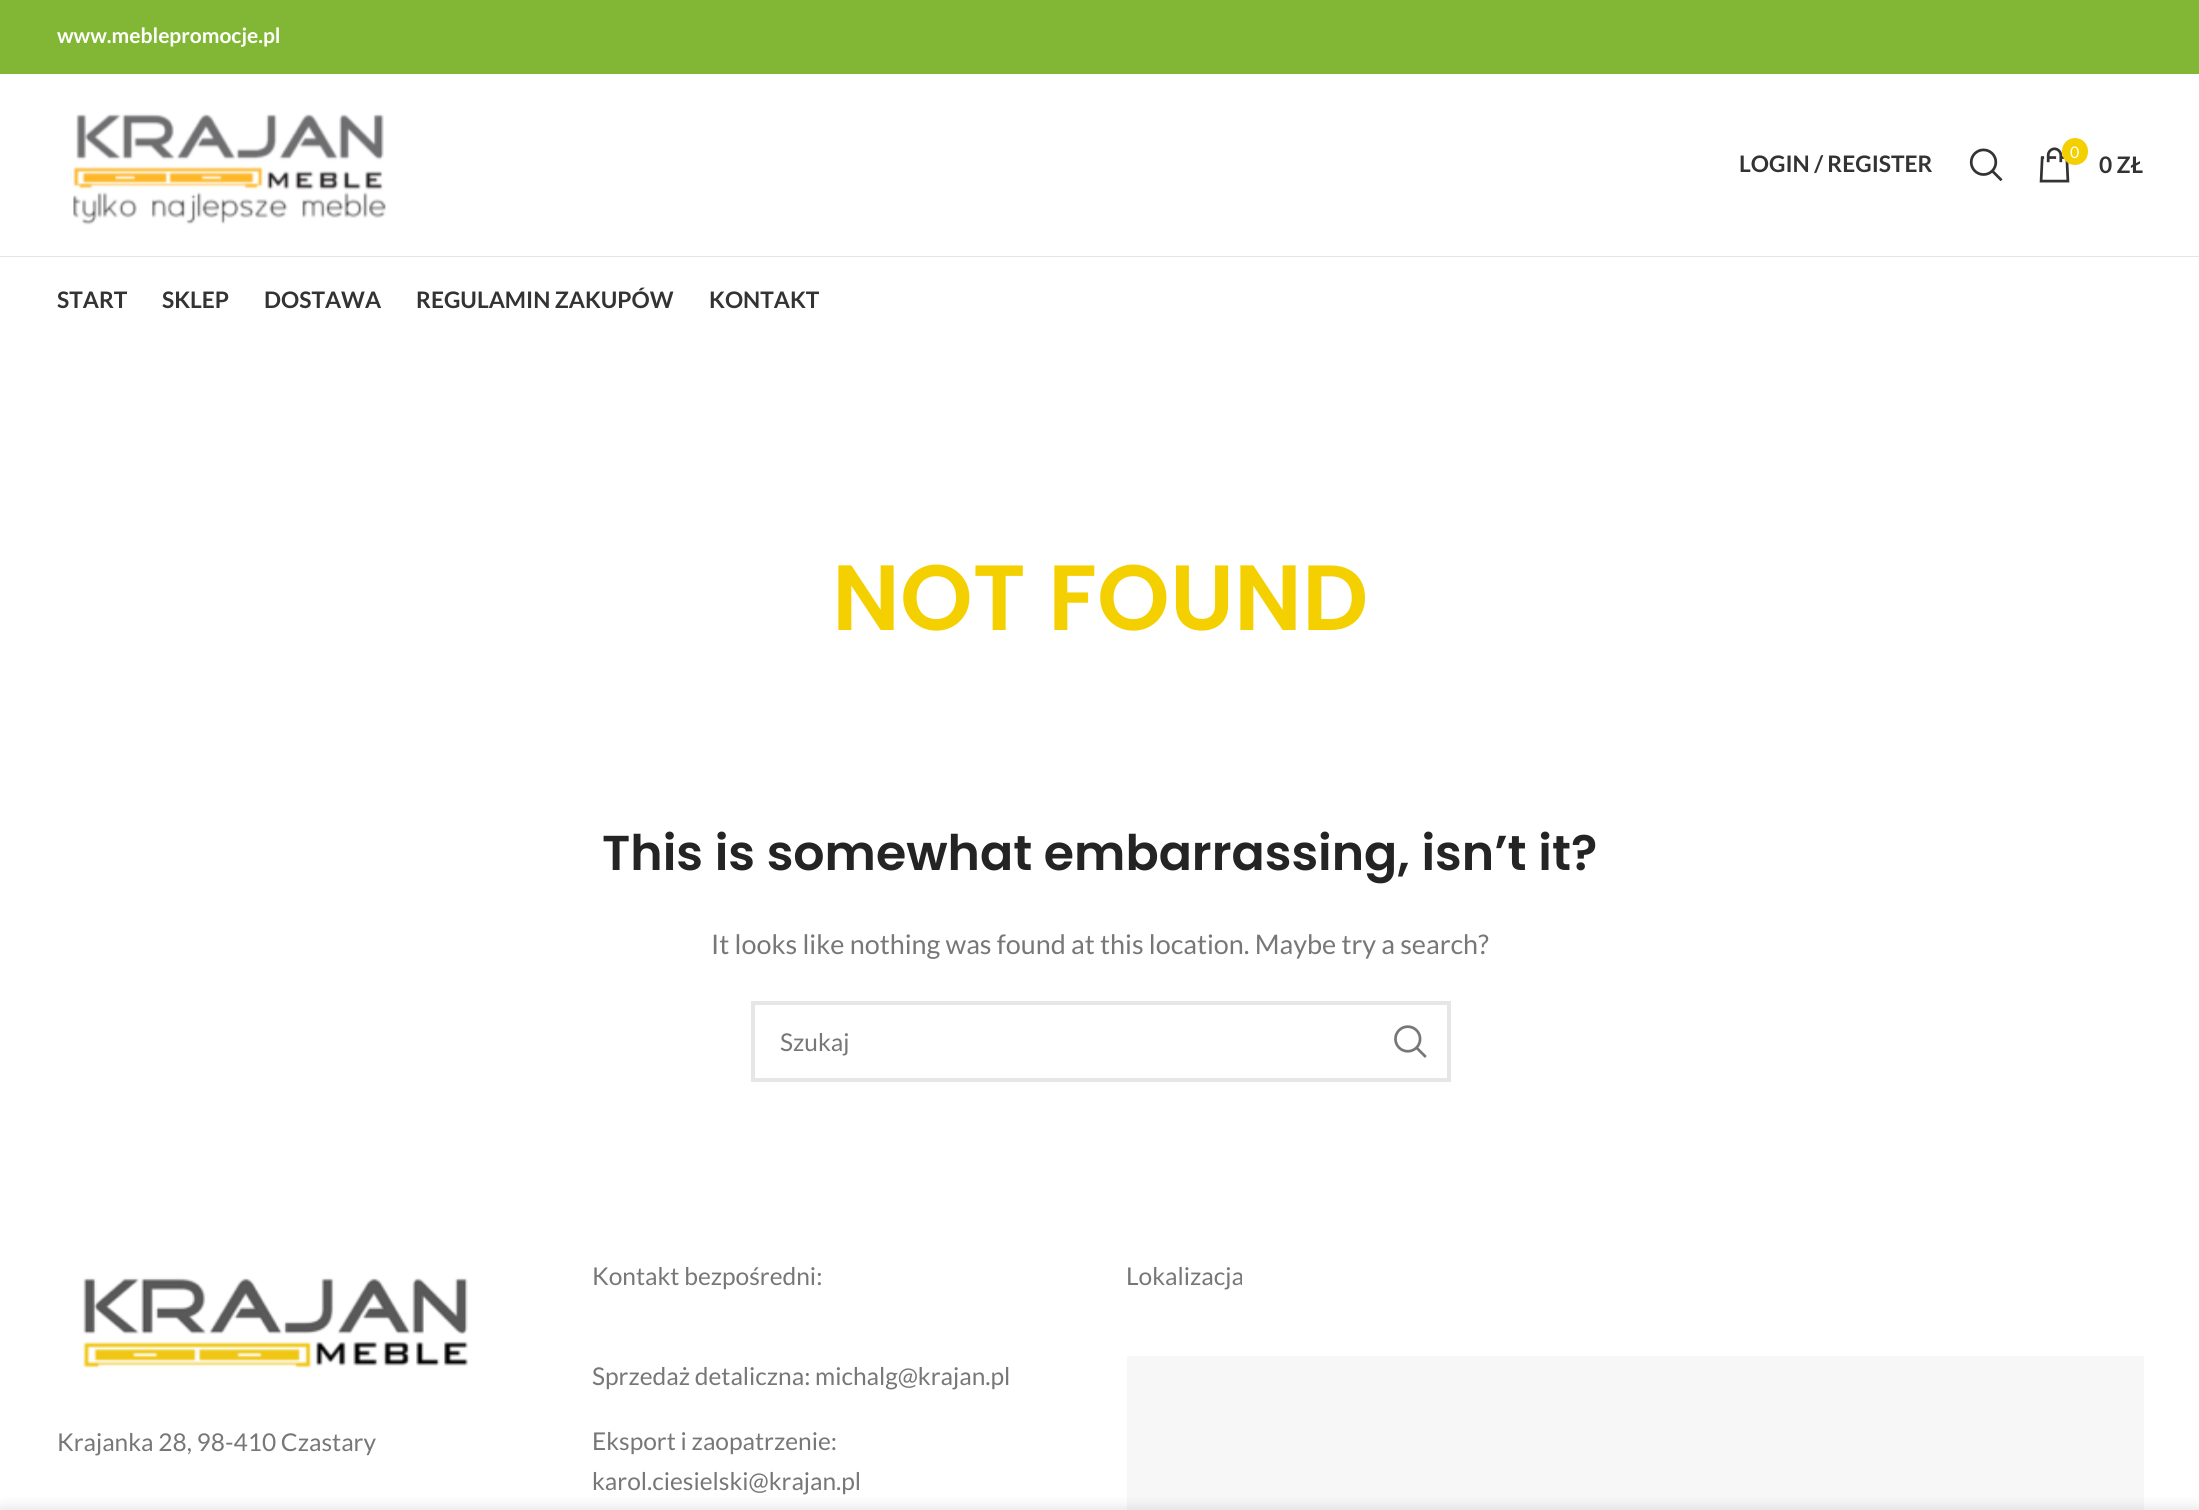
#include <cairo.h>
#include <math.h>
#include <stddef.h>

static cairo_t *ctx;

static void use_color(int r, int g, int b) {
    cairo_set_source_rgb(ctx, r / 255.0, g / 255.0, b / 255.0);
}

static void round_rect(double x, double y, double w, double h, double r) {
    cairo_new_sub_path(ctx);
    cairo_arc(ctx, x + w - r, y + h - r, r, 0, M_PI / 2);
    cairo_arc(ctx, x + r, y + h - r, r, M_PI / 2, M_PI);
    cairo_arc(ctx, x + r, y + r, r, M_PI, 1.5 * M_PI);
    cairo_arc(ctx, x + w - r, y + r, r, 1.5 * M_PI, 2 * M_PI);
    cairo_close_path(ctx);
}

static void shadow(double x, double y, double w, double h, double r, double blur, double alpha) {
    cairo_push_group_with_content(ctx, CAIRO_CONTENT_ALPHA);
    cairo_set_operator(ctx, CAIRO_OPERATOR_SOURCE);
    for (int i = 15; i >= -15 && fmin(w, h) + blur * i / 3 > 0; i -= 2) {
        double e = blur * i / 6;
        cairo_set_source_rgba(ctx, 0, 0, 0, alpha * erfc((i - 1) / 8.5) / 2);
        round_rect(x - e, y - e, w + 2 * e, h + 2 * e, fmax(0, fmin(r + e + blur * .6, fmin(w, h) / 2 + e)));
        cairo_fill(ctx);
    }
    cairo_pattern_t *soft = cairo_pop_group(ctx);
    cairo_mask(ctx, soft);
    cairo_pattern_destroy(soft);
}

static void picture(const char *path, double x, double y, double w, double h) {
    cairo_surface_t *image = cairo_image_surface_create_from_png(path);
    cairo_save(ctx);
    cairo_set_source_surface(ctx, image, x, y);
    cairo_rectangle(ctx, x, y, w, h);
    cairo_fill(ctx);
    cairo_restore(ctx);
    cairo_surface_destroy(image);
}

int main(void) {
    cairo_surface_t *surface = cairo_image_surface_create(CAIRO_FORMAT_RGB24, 2199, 1510);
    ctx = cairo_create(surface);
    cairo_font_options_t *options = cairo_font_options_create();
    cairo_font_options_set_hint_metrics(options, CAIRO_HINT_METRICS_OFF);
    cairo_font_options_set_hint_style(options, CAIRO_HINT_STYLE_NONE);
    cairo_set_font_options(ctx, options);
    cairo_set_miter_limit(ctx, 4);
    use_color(255, 255, 255);
    cairo_paint(ctx);
    use_color(130, 183, 53);
    cairo_rectangle(ctx, 0, 0, 2199, 74);
    cairo_fill(ctx);
    cairo_select_font_face(ctx, "Lato", CAIRO_FONT_SLANT_NORMAL, CAIRO_FONT_WEIGHT_BOLD);
    cairo_set_font_size(ctx, 21);
    use_color(255, 255, 255);
    cairo_move_to(ctx, 57, 43);
    cairo_show_text(ctx, "www.meblepromocje.pl");
    use_color(230, 230, 230);
    cairo_rectangle(ctx, 0, 256, 2199, 1);
    cairo_fill(ctx);
    picture("img1.png", 73, 113, 314, 112);
    cairo_set_font_size(ctx, 22.75);
    use_color(51, 51, 51);
    cairo_move_to(ctx, 1739, 172);
    cairo_show_text(ctx, "LOGIN / REGISTER");
    picture("img2.png", 1969, 148, 34, 34);
    picture("img3.png", 2039, 147, 31, 36);
    use_color(244, 208, 0);
    round_rect(2062, 138, 26, 27, 13);
    cairo_fill(ctx);
    cairo_select_font_face(ctx, "Lato", CAIRO_FONT_SLANT_NORMAL, CAIRO_FONT_WEIGHT_NORMAL);
    cairo_set_font_size(ctx, 16);
    use_color(255, 255, 255);
    cairo_move_to(ctx, 2070, 158);
    cairo_show_text(ctx, "0");
    cairo_select_font_face(ctx, "Lato", CAIRO_FONT_SLANT_NORMAL, CAIRO_FONT_WEIGHT_BOLD);
    cairo_set_font_size(ctx, 22.75);
    use_color(51, 51, 51);
    cairo_move_to(ctx, 2099, 173);
    cairo_show_text(ctx, "0 ZŁ");
    cairo_move_to(ctx, 57, 308);
    cairo_show_text(ctx, "START");
    cairo_move_to(ctx, 162, 308);
    cairo_show_text(ctx, "SKLEP");
    cairo_move_to(ctx, 264, 308);
    cairo_show_text(ctx, "DOSTAWA");
    cairo_move_to(ctx, 416, 308);
    cairo_show_text(ctx, "REGULAMIN ZAKUPÓW");
    cairo_move_to(ctx, 709, 308);
    cairo_show_text(ctx, "KONTAKT");
    cairo_select_font_face(ctx, "Poppins SemiBold", CAIRO_FONT_SLANT_NORMAL, CAIRO_FONT_WEIGHT_NORMAL);
    cairo_set_font_size(ctx, 92.5);
    use_color(244, 208, 0);
    cairo_move_to(ctx, 832, 630);
    cairo_show_text(ctx, "NOT FOUND");
    cairo_set_font_size(ctx, 49);
    use_color(36, 36, 36);
    cairo_move_to(ctx, 602, 870);
    cairo_show_text(ctx, "This is somewhat embarrassing, isn’t it?");
    cairo_select_font_face(ctx, "Lato", CAIRO_FONT_SLANT_NORMAL, CAIRO_FONT_WEIGHT_NORMAL);
    cairo_set_font_size(ctx, 26.95);
    use_color(119, 119, 119);
    cairo_move_to(ctx, 711, 954);
    cairo_show_text(ctx, "It looks like nothing was found at this location. Maybe try a search?");
    cairo_rectangle(ctx, 753, 1003, 696, 77);
    use_color(230, 230, 230);
    cairo_set_line_width(ctx, 4);
    cairo_stroke(ctx);
    cairo_set_font_size(ctx, 24.5);
    use_color(119, 119, 119);
    cairo_move_to(ctx, 780, 1051);
    cairo_show_text(ctx, "Szukaj");
    picture("img4.png", 1394, 1025, 33, 33);
    cairo_move_to(ctx, 592, 1285);
    cairo_show_text(ctx, "Kontakt bezpośredni:");
    cairo_move_to(ctx, 592, 1385);
    cairo_show_text(ctx, "Sprzedaż detaliczna: michalg@krajan.pl");
    cairo_move_to(ctx, 592, 1450);
    cairo_show_text(ctx, "Eksport i zaopatrzenie:");
    cairo_move_to(ctx, 592, 1490);
    cairo_show_text(ctx, "karol.ciesielski@krajan.pl");
    cairo_move_to(ctx, 1126, 1285);
    cairo_show_text(ctx, "Lokalizacja");
    use_color(247, 247, 247);
    cairo_rectangle(ctx, 1127, 1356, 1017, 154);
    cairo_fill(ctx);
    picture("img5.png", 82, 1277, 386, 92);
    use_color(119, 119, 119);
    cairo_move_to(ctx, 57, 1451);
    cairo_show_text(ctx, "Krajanka 28, 98-410 Czastary");
    use_color(0, 0, 0);
    shadow(0, 1510, 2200, 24, 0, 8, 0.14);
    cairo_surface_write_to_png(surface, "result.png");
    cairo_font_options_destroy(options);
    cairo_destroy(ctx);
    cairo_surface_destroy(surface);
    return 0;
}
